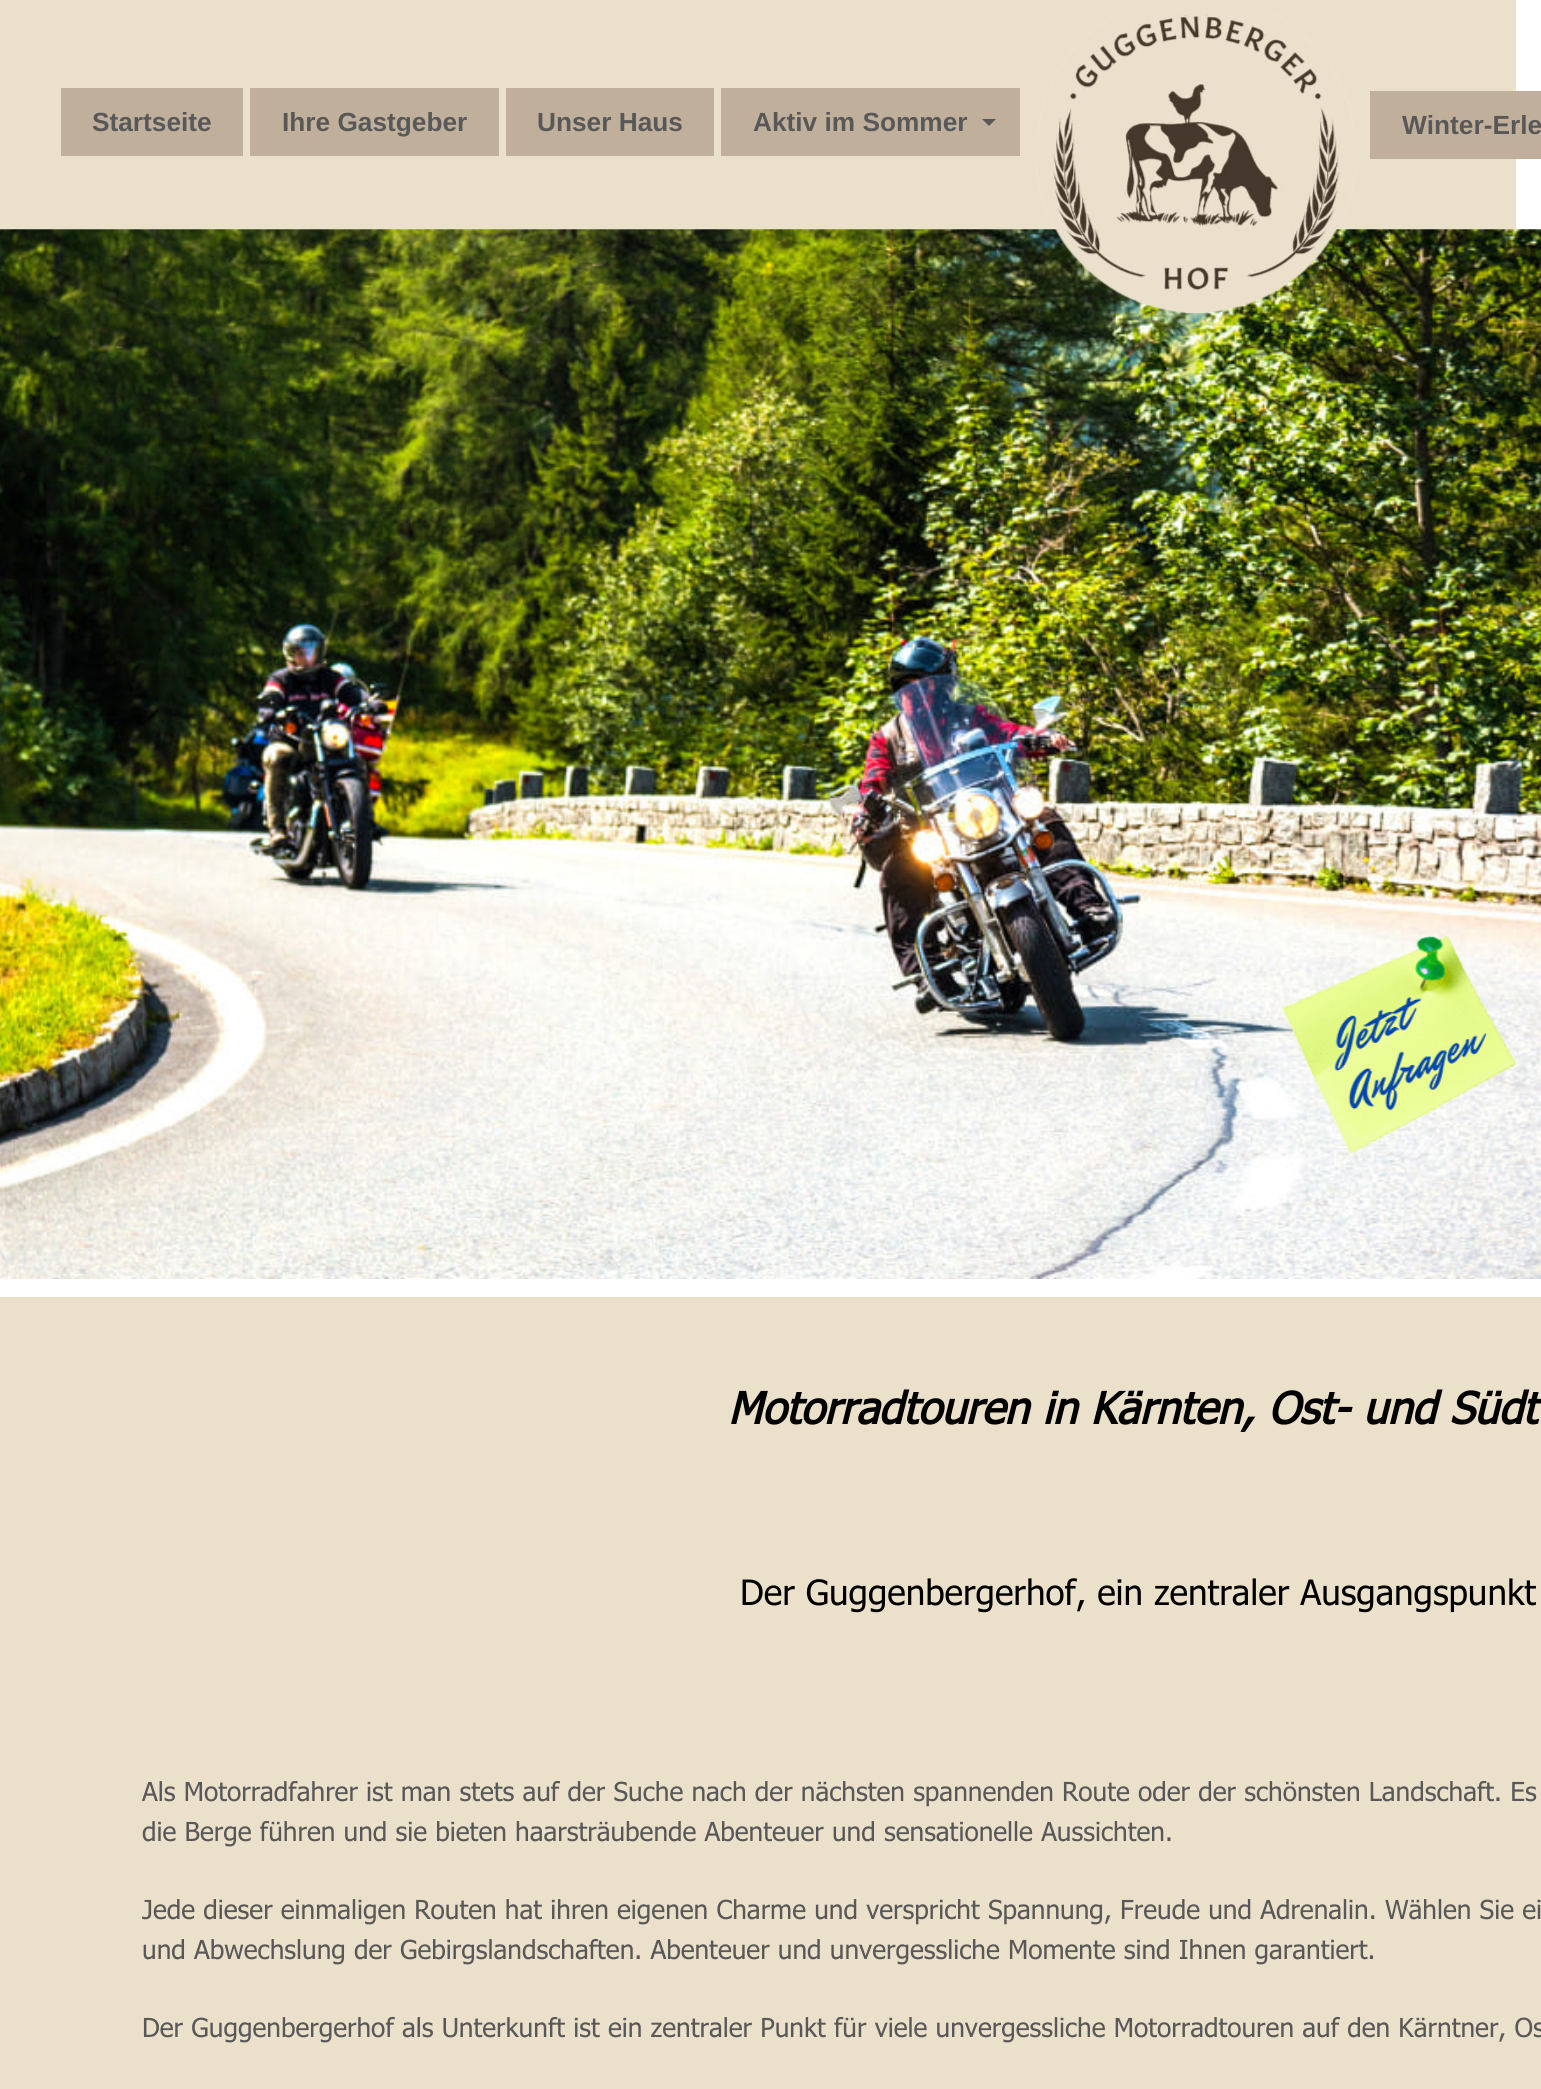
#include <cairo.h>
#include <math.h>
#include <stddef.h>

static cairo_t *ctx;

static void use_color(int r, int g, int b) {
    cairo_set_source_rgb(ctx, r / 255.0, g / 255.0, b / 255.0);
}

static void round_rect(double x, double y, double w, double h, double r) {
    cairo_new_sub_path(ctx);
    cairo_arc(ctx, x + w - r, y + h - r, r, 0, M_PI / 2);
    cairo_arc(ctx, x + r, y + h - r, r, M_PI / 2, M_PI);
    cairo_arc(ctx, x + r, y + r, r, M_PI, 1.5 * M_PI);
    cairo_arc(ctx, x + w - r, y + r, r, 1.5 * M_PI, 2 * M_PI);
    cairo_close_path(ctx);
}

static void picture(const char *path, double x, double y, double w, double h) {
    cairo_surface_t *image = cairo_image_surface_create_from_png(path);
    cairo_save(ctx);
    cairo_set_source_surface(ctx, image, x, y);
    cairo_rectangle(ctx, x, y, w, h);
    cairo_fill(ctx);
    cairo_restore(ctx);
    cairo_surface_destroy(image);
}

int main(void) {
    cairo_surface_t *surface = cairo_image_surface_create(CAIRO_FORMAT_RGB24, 1541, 2089);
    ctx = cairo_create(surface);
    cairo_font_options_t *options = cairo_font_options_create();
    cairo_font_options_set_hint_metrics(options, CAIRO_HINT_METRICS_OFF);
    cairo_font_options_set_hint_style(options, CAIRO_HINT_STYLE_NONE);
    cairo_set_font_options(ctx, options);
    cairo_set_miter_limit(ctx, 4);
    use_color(255, 255, 255);
    cairo_paint(ctx);
    use_color(235, 225, 203);
    cairo_rectangle(ctx, 0, 0, 1516, 229);
    cairo_fill(ctx);
    use_color(192, 176, 155);
    cairo_rectangle(ctx, 61, 88, 182, 68);
    cairo_fill(ctx);
    cairo_select_font_face(ctx, "Liberation Sans", CAIRO_FONT_SLANT_NORMAL, CAIRO_FONT_WEIGHT_BOLD);
    cairo_set_font_size(ctx, 26.25);
    use_color(89, 88, 88);
    cairo_move_to(ctx, 92, 131);
    cairo_show_text(ctx, "Startseite");
    use_color(192, 176, 155);
    cairo_rectangle(ctx, 250, 88, 249, 68);
    cairo_fill(ctx);
    use_color(89, 88, 88);
    cairo_move_to(ctx, 282, 131);
    cairo_show_text(ctx, "Ihre Gastgeber");
    use_color(192, 176, 155);
    cairo_rectangle(ctx, 506, 88, 208, 68);
    cairo_fill(ctx);
    use_color(89, 88, 88);
    cairo_move_to(ctx, 537, 131);
    cairo_show_text(ctx, "Unser Haus");
    use_color(192, 176, 155);
    cairo_rectangle(ctx, 721, 88, 299, 68);
    cairo_fill(ctx);
    use_color(89, 88, 88);
    cairo_move_to(ctx, 753, 131);
    cairo_show_text(ctx, "Aktiv im Sommer");
    cairo_new_path(ctx);
    cairo_move_to(ctx, 982, 119);
    cairo_line_to(ctx, 996, 119);
    cairo_line_to(ctx, 989, 126);
    cairo_close_path(ctx);
    cairo_fill(ctx);
    picture("img2.png", 0, 229, 1541, 1050);
    picture("img1.png", 1036, 14, 320, 300);
    cairo_set_source_rgba(ctx, 0.922, 0.882, 0.796, 0.99);
    round_rect(1367, 91, 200, 68, 26);
    cairo_fill(ctx);
    use_color(192, 176, 155);
    cairo_rectangle(ctx, 1370, 91, 171, 68);
    cairo_fill(ctx);
    use_color(89, 88, 88);
    cairo_move_to(ctx, 1402, 134);
    cairo_show_text(ctx, "Winter-Erle");
    picture("img3.png", 1281, 935, 236, 219);
    use_color(235, 225, 203);
    cairo_rectangle(ctx, 0, 1297, 1541, 792);
    cairo_fill(ctx);
    cairo_select_font_face(ctx, "Tahoma", CAIRO_FONT_SLANT_ITALIC, CAIRO_FONT_WEIGHT_BOLD);
    cairo_set_font_size(ctx, 43.75);
    use_color(0, 0, 0);
    cairo_move_to(ctx, 728, 1424);
    cairo_show_text(ctx, "Motorradtouren in Kärnten, Ost- und Südt");
    cairo_select_font_face(ctx, "Tahoma", CAIRO_FONT_SLANT_NORMAL, CAIRO_FONT_WEIGHT_NORMAL);
    cairo_set_font_size(ctx, 35);
    cairo_move_to(ctx, 740, 1605);
    cairo_show_text(ctx, "Der Guggenbergerhof, ein zentraler Ausgangspunkt");
    cairo_set_font_size(ctx, 26.25);
    use_color(89, 88, 88);
    cairo_move_to(ctx, 142, 1801);
    cairo_show_text(ctx, "Als Motorradfahrer ist man stets auf der Suche nach der nächsten spannenden Route oder der schönsten Landschaft. Es");
    cairo_move_to(ctx, 142, 1841);
    cairo_show_text(ctx, "die Berge führen und sie bieten haarsträubende Abenteuer und sensationelle Aussichten.");
    cairo_move_to(ctx, 142, 1919);
    cairo_show_text(ctx, "Jede dieser einmaligen Routen hat ihren eigenen Charme und verspricht Spannung, Freude und Adrenalin. Wählen Sie ei");
    cairo_move_to(ctx, 142, 1959);
    cairo_show_text(ctx, "und Abwechslung der Gebirgslandschaften. Abenteuer und unvergessliche Momente sind Ihnen garantiert.");
    cairo_move_to(ctx, 142, 2037);
    cairo_show_text(ctx, "Der Guggenbergerhof als Unterkunft ist ein zentraler Punkt für viele unvergessliche Motorradtouren auf den Kärntner, Os");
    cairo_surface_write_to_png(surface, "result.png");
    cairo_font_options_destroy(options);
    cairo_destroy(ctx);
    cairo_surface_destroy(surface);
    return 0;
}
